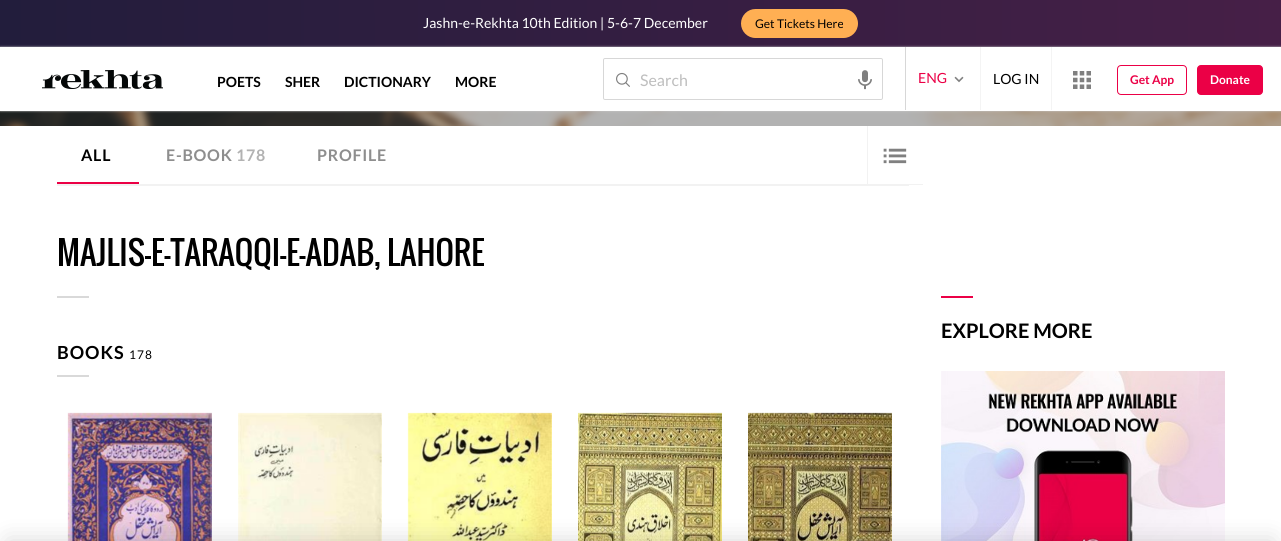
#include <cairo.h>
#include <math.h>
#include <stddef.h>

static cairo_t *ctx;

static void use_color(int r, int g, int b) {
    cairo_set_source_rgb(ctx, r / 255.0, g / 255.0, b / 255.0);
}

static void spaced_text(double x, double y, const char *s, double letter, double word) {
    cairo_move_to(ctx, x, y);
    while (*s) {
        char ch[5] = {0};
        int n = 0;
        do ch[n++] = *s++; while ((*s & 0xC0) == 0x80);
        cairo_show_text(ctx, ch);
        cairo_rel_move_to(ctx, letter + word * (*ch == ' '), 0);
    }
}

static void round_rect(double x, double y, double w, double h, double r) {
    cairo_new_sub_path(ctx);
    cairo_arc(ctx, x + w - r, y + h - r, r, 0, M_PI / 2);
    cairo_arc(ctx, x + r, y + h - r, r, M_PI / 2, M_PI);
    cairo_arc(ctx, x + r, y + r, r, M_PI, 1.5 * M_PI);
    cairo_arc(ctx, x + w - r, y + r, r, 1.5 * M_PI, 2 * M_PI);
    cairo_close_path(ctx);
}

static void shadow(double x, double y, double w, double h, double r, double blur, double alpha) {
    cairo_push_group_with_content(ctx, CAIRO_CONTENT_ALPHA);
    cairo_set_operator(ctx, CAIRO_OPERATOR_SOURCE);
    for (int i = 15; i >= -15 && fmin(w, h) + blur * i / 3 > 0; i -= 2) {
        double e = blur * i / 6;
        cairo_set_source_rgba(ctx, 0, 0, 0, alpha * erfc((i - 1) / 8.5) / 2);
        round_rect(x - e, y - e, w + 2 * e, h + 2 * e, fmax(0, fmin(r + e + blur * .6, fmin(w, h) / 2 + e)));
        cairo_fill(ctx);
    }
    cairo_pattern_t *soft = cairo_pop_group(ctx);
    cairo_mask(ctx, soft);
    cairo_pattern_destroy(soft);
}

static void picture(const char *path, double x, double y, double w, double h) {
    cairo_surface_t *image = cairo_image_surface_create_from_png(path);
    cairo_save(ctx);
    cairo_set_source_surface(ctx, image, x, y);
    cairo_rectangle(ctx, x, y, w, h);
    cairo_fill(ctx);
    cairo_restore(ctx);
    cairo_surface_destroy(image);
}

int main(void) {
    cairo_surface_t *surface = cairo_image_surface_create(CAIRO_FORMAT_RGB24, 1281, 541);
    ctx = cairo_create(surface);
    cairo_font_options_t *options = cairo_font_options_create();
    cairo_font_options_set_hint_metrics(options, CAIRO_HINT_METRICS_OFF);
    cairo_font_options_set_hint_style(options, CAIRO_HINT_STYLE_NONE);
    cairo_set_font_options(ctx, options);
    cairo_set_miter_limit(ctx, 4);
    cairo_pattern_t *gradient;
    use_color(255, 255, 255);
    cairo_paint(ctx);
    gradient = cairo_pattern_create_linear(0, 24, 1281, 23);
    cairo_pattern_add_color_stop_rgba(gradient, 0, 0.133, 0.114, 0.235, 1);
    cairo_pattern_add_color_stop_rgba(gradient, 1, 0.275, 0.122, 0.278, 1);
    cairo_set_source(ctx, gradient);
    cairo_pattern_destroy(gradient);
    cairo_rectangle(ctx, 0, 0, 1281, 47);
    cairo_fill(ctx);
    cairo_select_font_face(ctx, "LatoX", CAIRO_FONT_SLANT_NORMAL, CAIRO_FONT_WEIGHT_NORMAL);
    cairo_set_font_size(ctx, 14);
    use_color(255, 255, 255);
    cairo_move_to(ctx, 423, 28);
    cairo_show_text(ctx, "Jashn-e-Rekhta 10th Edition | 5-6-7 December");
    use_color(255, 175, 83);
    round_rect(741, 9, 117, 29, 14.5);
    cairo_fill(ctx);
    cairo_set_font_size(ctx, 12);
    use_color(0, 0, 0);
    cairo_move_to(ctx, 755, 28);
    cairo_show_text(ctx, "Get Tickets Here");
    picture("img6.png", 0, 111, 1281, 15);
    use_color(204, 204, 204);
    shadow(0, 47, 1281, 64, 0, 1, 1);
    use_color(255, 255, 255);
    cairo_rectangle(ctx, 0, 47, 1281, 64);
    cairo_fill(ctx);
    picture("img1.png", 42, 70, 121, 19);
    cairo_select_font_face(ctx, "LatoX", CAIRO_FONT_SLANT_NORMAL, CAIRO_FONT_WEIGHT_BOLD);
    cairo_set_font_size(ctx, 14);
    use_color(0, 0, 0);
    cairo_move_to(ctx, 217, 87);
    cairo_show_text(ctx, "POETS");
    cairo_move_to(ctx, 285, 87);
    cairo_show_text(ctx, "SHER");
    cairo_move_to(ctx, 344, 87);
    cairo_show_text(ctx, "DICTIONARY");
    cairo_move_to(ctx, 455, 87);
    cairo_show_text(ctx, "MORE");
    round_rect(603.5, 58.5, 279, 41, 1.5);
    use_color(215, 215, 215);
    cairo_set_line_width(ctx, 1);
    cairo_stroke(ctx);
    picture("img2.png", 616, 72, 14, 15);
    cairo_select_font_face(ctx, "LatoX", CAIRO_FONT_SLANT_NORMAL, CAIRO_FONT_WEIGHT_NORMAL);
    cairo_set_font_size(ctx, 16);
    use_color(190, 190, 190);
    cairo_move_to(ctx, 640, 86);
    cairo_show_text(ctx, "Search");
    picture("img3.png", 858, 70, 14, 20);
    use_color(215, 215, 215);
    cairo_rectangle(ctx, 905, 47, 1, 63);
    cairo_fill(ctx);
    cairo_set_font_size(ctx, 14);
    use_color(235, 0, 70);
    cairo_move_to(ctx, 918, 83);
    cairo_show_text(ctx, "ENG");
    picture("img4.png", 954, 76, 10, 7);
    use_color(244, 244, 244);
    cairo_rectangle(ctx, 980, 47, 1, 63);
    cairo_fill(ctx);
    use_color(0, 0, 0);
    cairo_move_to(ctx, 993, 84);
    cairo_show_text(ctx, "LOG IN");
    use_color(244, 244, 244);
    cairo_rectangle(ctx, 1051, 47, 1, 63);
    cairo_fill(ctx);
    picture("img5.png", 1073, 71, 18, 18);
    round_rect(1117.5, 65.5, 69, 29, 3.5);
    use_color(235, 0, 70);
    cairo_stroke(ctx);
    cairo_select_font_face(ctx, "LatoX", CAIRO_FONT_SLANT_NORMAL, CAIRO_FONT_WEIGHT_BOLD);
    cairo_set_font_size(ctx, 12);
    cairo_move_to(ctx, 1130, 84);
    cairo_show_text(ctx, "Get App");
    round_rect(1197.5, 65.5, 65, 29, 3.5);
    cairo_fill_preserve(ctx);
    cairo_stroke(ctx);
    use_color(255, 255, 255);
    cairo_move_to(ctx, 1210, 84);
    cairo_show_text(ctx, "Donate");
    use_color(242, 242, 242);
    cairo_rectangle(ctx, 57, 184, 852, 2);
    cairo_fill(ctx);
    cairo_set_font_size(ctx, 16);
    use_color(0, 0, 0);
    spaced_text(81, 161, "ALL", 0.75, 0);
    use_color(235, 0, 69);
    cairo_rectangle(ctx, 57, 182, 82, 2);
    cairo_fill(ctx);
    use_color(142, 142, 142);
    spaced_text(166, 161, "E-BOOK", 0.75, 0);
    use_color(178, 178, 178);
    spaced_text(236, 161, "178", 0.75, 0);
    use_color(142, 142, 142);
    spaced_text(317, 161, "PROFILE", 0.75, 0);
    use_color(242, 242, 242);
    cairo_rectangle(ctx, 909, 184, 14, 1);
    cairo_fill(ctx);
    cairo_rectangle(ctx, 867, 126, 1, 59);
    cairo_fill(ctx);
    picture("img7.png", 883, 148, 24, 16);
    cairo_select_font_face(ctx, "Oswald", CAIRO_FONT_SLANT_NORMAL, CAIRO_FONT_WEIGHT_NORMAL);
    cairo_set_font_size(ctx, 32);
    use_color(0, 0, 0);
    cairo_move_to(ctx, 57, 266);
    cairo_show_text(ctx, "MAJLIS-E-TARAQQI-E-ADAB, LAHORE");
    use_color(217, 217, 217);
    cairo_rectangle(ctx, 57, 296, 32, 2);
    cairo_fill(ctx);
    cairo_select_font_face(ctx, "LatoX", CAIRO_FONT_SLANT_NORMAL, CAIRO_FONT_WEIGHT_BOLD);
    cairo_set_font_size(ctx, 18);
    use_color(0, 0, 0);
    spaced_text(57, 359, "BOOKS", 1, 0);
    cairo_select_font_face(ctx, "LatoX", CAIRO_FONT_SLANT_NORMAL, CAIRO_FONT_WEIGHT_NORMAL);
    cairo_set_font_size(ctx, 12);
    spaced_text(129, 359, "178", 1, 0);
    use_color(217, 217, 217);
    cairo_rectangle(ctx, 57, 375, 32, 2);
    cairo_fill(ctx);
    picture("img8.png", 67, 412, 145, 129);
    picture("img9.png", 238, 412, 144, 129);
    picture("img10.png", 407, 412, 145, 129);
    picture("img11.png", 578, 412, 144, 129);
    picture("img12.png", 748, 412, 144, 129);
    picture("img13.png", 941, 371, 284, 170);
    use_color(0, 0, 0);
    shadow(8, 541, 1265, 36, 0, 12, 0.15);
    use_color(235, 0, 70);
    cairo_rectangle(ctx, 941, 296, 32, 2);
    cairo_fill(ctx);
    cairo_select_font_face(ctx, "LatoX", CAIRO_FONT_SLANT_NORMAL, CAIRO_FONT_WEIGHT_BOLD);
    cairo_set_font_size(ctx, 20);
    use_color(0, 0, 0);
    cairo_move_to(ctx, 941, 338);
    cairo_show_text(ctx, "EXPLORE MORE");
    cairo_surface_write_to_png(surface, "result.png");
    cairo_font_options_destroy(options);
    cairo_destroy(ctx);
    cairo_surface_destroy(surface);
    return 0;
}
